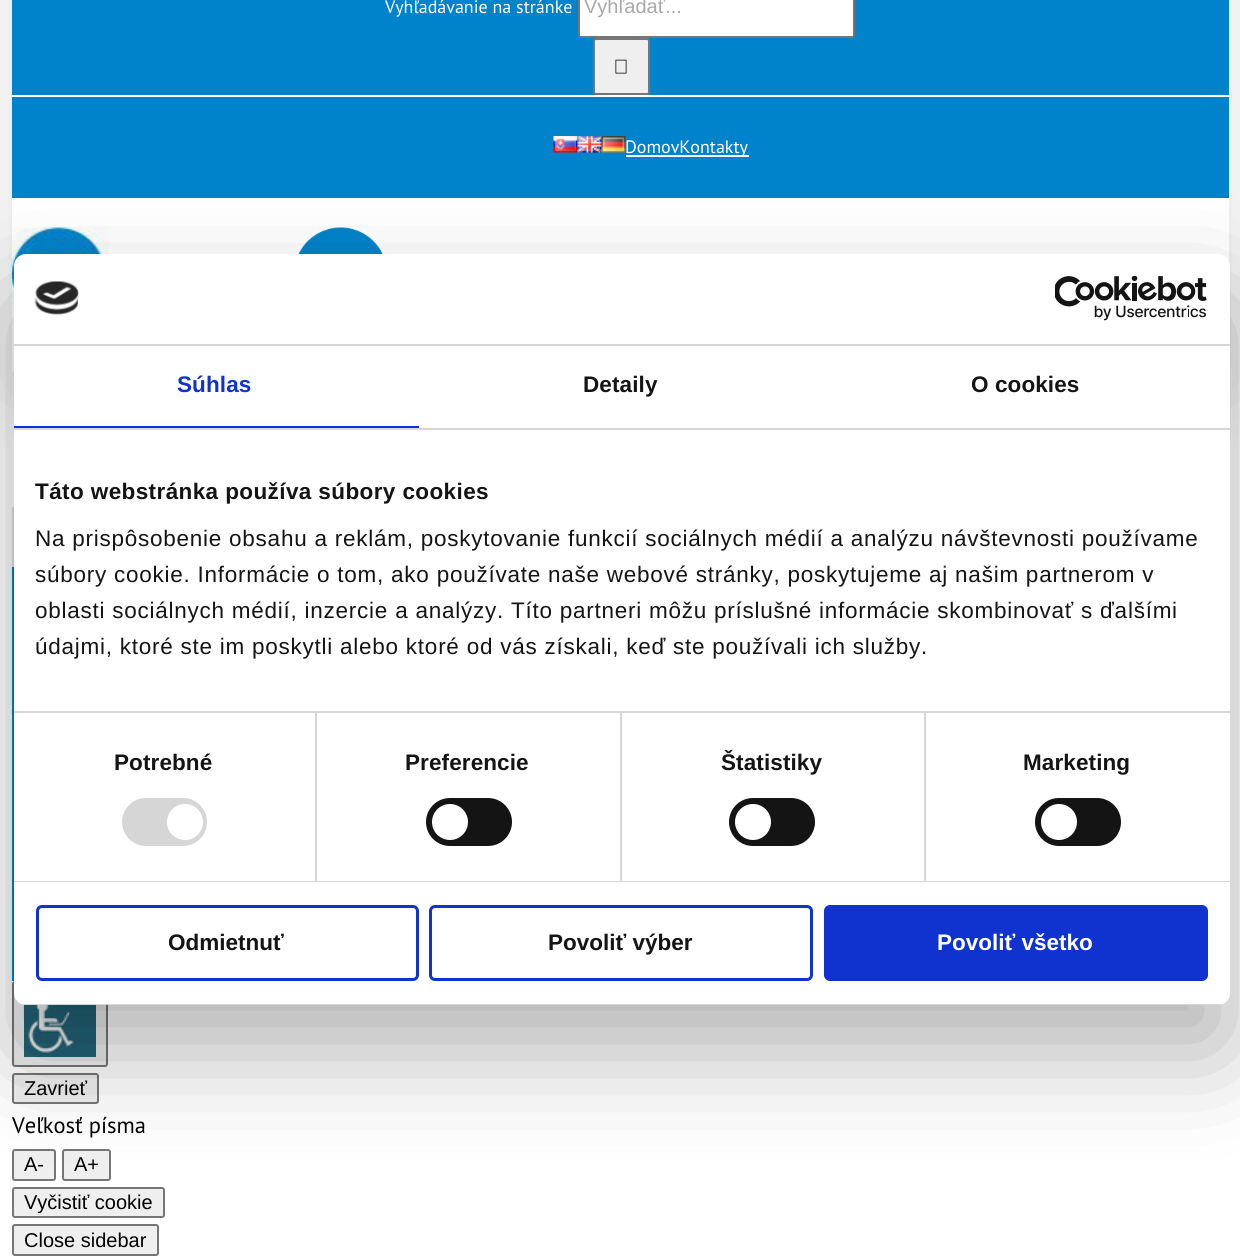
#include <cairo.h>
#include <math.h>
#include <stddef.h>

static cairo_t *ctx;

static void use_color(int r, int g, int b) {
    cairo_set_source_rgb(ctx, r / 255.0, g / 255.0, b / 255.0);
}

static void spaced_text(double x, double y, const char *s, double letter, double word) {
    cairo_move_to(ctx, x, y);
    while (*s) {
        char ch[5] = {0};
        int n = 0;
        do ch[n++] = *s++; while ((*s & 0xC0) == 0x80);
        cairo_show_text(ctx, ch);
        cairo_rel_move_to(ctx, letter + word * (*ch == ' '), 0);
    }
}

static void round_rect(double x, double y, double w, double h, double r) {
    cairo_new_sub_path(ctx);
    cairo_arc(ctx, x + w - r, y + h - r, r, 0, M_PI / 2);
    cairo_arc(ctx, x + r, y + h - r, r, M_PI / 2, M_PI);
    cairo_arc(ctx, x + r, y + r, r, M_PI, 1.5 * M_PI);
    cairo_arc(ctx, x + w - r, y + r, r, 1.5 * M_PI, 2 * M_PI);
    cairo_close_path(ctx);
}

static void shadow(double x, double y, double w, double h, double r, double blur, double alpha) {
    cairo_push_group_with_content(ctx, CAIRO_CONTENT_ALPHA);
    cairo_set_operator(ctx, CAIRO_OPERATOR_SOURCE);
    for (int i = 15; i >= -15 && fmin(w, h) + blur * i / 3 > 0; i -= 2) {
        double e = blur * i / 6;
        cairo_set_source_rgba(ctx, 0, 0, 0, alpha * erfc((i - 1) / 8.5) / 2);
        round_rect(x - e, y - e, w + 2 * e, h + 2 * e, fmax(0, fmin(r + e + blur * .6, fmin(w, h) / 2 + e)));
        cairo_fill(ctx);
    }
    cairo_pattern_t *soft = cairo_pop_group(ctx);
    cairo_mask(ctx, soft);
    cairo_pattern_destroy(soft);
}

static void picture(const char *path, double x, double y, double w, double h) {
    cairo_surface_t *image = cairo_image_surface_create_from_png(path);
    cairo_save(ctx);
    cairo_set_source_surface(ctx, image, x, y);
    cairo_rectangle(ctx, x, y, w, h);
    cairo_fill(ctx);
    cairo_restore(ctx);
    cairo_surface_destroy(image);
}

int main(void) {
    cairo_surface_t *surface = cairo_image_surface_create(CAIRO_FORMAT_RGB24, 1240, 1257);
    ctx = cairo_create(surface);
    cairo_font_options_t *options = cairo_font_options_create();
    cairo_font_options_set_hint_metrics(options, CAIRO_HINT_METRICS_OFF);
    cairo_font_options_set_hint_style(options, CAIRO_HINT_STYLE_NONE);
    cairo_set_font_options(ctx, options);
    cairo_set_miter_limit(ctx, 4);
    use_color(255, 255, 255);
    cairo_paint(ctx);
    use_color(0, 0, 0);
    shadow(15, -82, 1211, 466, 0, 37.5, 0.14);
    use_color(0, 131, 203);
    cairo_rectangle(ctx, 12, 0, 1217, 198);
    cairo_fill(ctx);
    use_color(255, 255, 255);
    cairo_rectangle(ctx, 12, 95, 1217, 2);
    cairo_fill(ctx);
    cairo_select_font_face(ctx, "PT Sans", CAIRO_FONT_SLANT_NORMAL, CAIRO_FONT_WEIGHT_NORMAL);
    cairo_set_font_size(ctx, 18);
    cairo_move_to(ctx, 385, 13);
    cairo_show_text(ctx, "Vyhľadávanie na stránke");
    round_rect(579, -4, 275, 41, 2);
    cairo_fill_preserve(ctx);
    use_color(118, 118, 118);
    cairo_stroke(ctx);
    cairo_select_font_face(ctx, "Liberation Sans", CAIRO_FONT_SLANT_NORMAL, CAIRO_FONT_WEIGHT_NORMAL);
    cairo_set_font_size(ctx, 20);
    use_color(170, 169, 169);
    cairo_move_to(ctx, 584, 13);
    cairo_show_text(ctx, "Vyhľadať...");
    use_color(239, 239, 239);
    round_rect(594, 39, 55, 55, 2);
    cairo_fill_preserve(ctx);
    use_color(118, 118, 118);
    cairo_stroke(ctx);
    picture("img1.png", 615, 59, 12, 15);
    picture("img2.png", 553, 136, 25, 17);
    picture("img3.png", 577, 136, 25, 17);
    picture("img4.png", 601, 136, 25, 17);
    use_color(255, 255, 255);
    cairo_rectangle(ctx, 626, 155, 123, 2);
    cairo_fill(ctx);
    cairo_select_font_face(ctx, "PT Sans", CAIRO_FONT_SLANT_NORMAL, CAIRO_FONT_WEIGHT_NORMAL);
    cairo_set_font_size(ctx, 18);
    cairo_move_to(ctx, 625, 153);
    cairo_show_text(ctx, "DomovKontakty");
    cairo_rectangle(ctx, 12, 198, 1217, 174);
    cairo_fill(ctx);
    picture("img5.png", 12, 227, 276, 97);
    picture("img6.png", 298, 227, 85, 27);
    use_color(221, 221, 221);
    cairo_rectangle(ctx, 12, 507, 2, 60);
    cairo_fill(ctx);
    use_color(0, 131, 203);
    cairo_rectangle(ctx, 12, 567, 2, 414);
    cairo_fill(ctx);
    use_color(239, 239, 239);
    round_rect(13, 982, 94, 84, 2);
    cairo_fill_preserve(ctx);
    use_color(118, 118, 118);
    cairo_stroke(ctx);
    picture("img9.png", 24, 1004, 72, 53);
    use_color(239, 239, 239);
    round_rect(13, 1074, 85, 29, 2);
    cairo_fill_preserve(ctx);
    use_color(118, 118, 118);
    cairo_stroke(ctx);
    use_color(239, 239, 239);
    round_rect(13, 1150, 42, 30, 2);
    cairo_fill_preserve(ctx);
    use_color(118, 118, 118);
    cairo_stroke(ctx);
    use_color(239, 239, 239);
    round_rect(63, 1150, 47, 30, 2);
    cairo_fill_preserve(ctx);
    use_color(118, 118, 118);
    cairo_stroke(ctx);
    use_color(239, 239, 239);
    round_rect(13, 1188, 151, 29, 2);
    cairo_fill_preserve(ctx);
    use_color(118, 118, 118);
    cairo_stroke(ctx);
    use_color(0, 0, 0);
    shadow(14, 302, 1216, 751, 12, 51, 0.3);
    use_color(255, 255, 255);
    round_rect(14, 254, 1216, 751, 12);
    cairo_fill(ctx);
    use_color(214, 214, 214);
    cairo_rectangle(ctx, 14, 344, 1216, 2);
    cairo_fill(ctx);
    picture("img7.png", 34, 281, 45, 34);
    picture("img8.png", 1055, 276, 152, 45);
    cairo_rectangle(ctx, 14, 428, 1216, 2);
    cairo_fill(ctx);
    use_color(16, 50, 207);
    cairo_rectangle(ctx, 14, 426, 405, 2);
    cairo_fill(ctx);
    cairo_select_font_face(ctx, "Liberation Sans", CAIRO_FONT_SLANT_NORMAL, CAIRO_FONT_WEIGHT_BOLD);
    cairo_set_font_size(ctx, 22.5);
    spaced_text(177, 392, "Súhlas", 0.1, 0);
    use_color(20, 20, 20);
    spaced_text(583, 392, "Detaily", 0.1, 0);
    spaced_text(971, 392, "O cookies", 0.1, 0);
    use_color(214, 214, 214);
    cairo_rectangle(ctx, 14, 711, 1216, 2);
    cairo_fill(ctx);
    use_color(20, 20, 20);
    spaced_text(35, 499, "Táto webstránka používa súbory cookies", 0.4, 0);
    cairo_select_font_face(ctx, "Liberation Sans", CAIRO_FONT_SLANT_NORMAL, CAIRO_FONT_WEIGHT_NORMAL);
    spaced_text(35, 546, "Na prispôsobenie obsahu a reklám, poskytovanie funkcií sociálnych médií a analýzu návštevnosti používame", 0.75, 0);
    spaced_text(35, 582, "súbory cookie. Informácie o tom, ako používate naše webové stránky, poskytujeme aj našim partnerom v", 0.75, 0);
    spaced_text(35, 618, "oblasti sociálnych médií, inzercie a analýzy. Títo partneri môžu príslušné informácie skombinovať s ďalšími", 0.75, 0);
    spaced_text(35, 654, "údajmi, ktoré ste im poskytli alebo ktoré od vás získali, keď ste používali ich služby.", 0.75, 0);
    use_color(214, 214, 214);
    cairo_rectangle(ctx, 14, 881, 1216, 1);
    cairo_fill(ctx);
    cairo_rectangle(ctx, 315, 713, 2, 168);
    cairo_fill(ctx);
    cairo_select_font_face(ctx, "Liberation Sans", CAIRO_FONT_SLANT_NORMAL, CAIRO_FONT_WEIGHT_BOLD);
    use_color(20, 20, 20);
    spaced_text(114, 770, "Potrebné", 0.1, 0);
    use_color(214, 214, 214);
    round_rect(122, 798, 85, 48, 24);
    cairo_fill(ctx);
    use_color(255, 255, 255);
    cairo_arc(ctx, 185, 822, 18, 0, 2 * M_PI);
    cairo_fill(ctx);
    use_color(214, 214, 214);
    cairo_rectangle(ctx, 620, 713, 2, 168);
    cairo_fill(ctx);
    use_color(20, 20, 20);
    spaced_text(405, 770, "Preferencie", 0.1, 0);
    round_rect(426, 798, 86, 48, 24);
    cairo_fill(ctx);
    use_color(255, 255, 255);
    cairo_arc(ctx, 450, 822, 18, 0, 2 * M_PI);
    cairo_fill(ctx);
    use_color(214, 214, 214);
    cairo_rectangle(ctx, 924, 713, 2, 168);
    cairo_fill(ctx);
    use_color(20, 20, 20);
    spaced_text(721, 770, "Štatistiky", 0.1, 0);
    round_rect(729, 798, 86, 48, 24);
    cairo_fill(ctx);
    use_color(255, 255, 255);
    cairo_arc(ctx, 753, 822, 18, 0, 2 * M_PI);
    cairo_fill(ctx);
    use_color(20, 20, 20);
    spaced_text(1023, 770, "Marketing", 0.1, 0);
    round_rect(1035, 798, 86, 48, 24);
    cairo_fill(ctx);
    use_color(255, 255, 255);
    cairo_arc(ctx, 1059, 822, 18, 0, 2 * M_PI);
    cairo_fill(ctx);
    cairo_save(ctx);
    round_rect(14, 254, 1216, 751, 12);
    cairo_clip(ctx);
    use_color(214, 214, 214);
    cairo_rectangle(ctx, 14, 1004, 1216, 1);
    cairo_fill(ctx);
    cairo_restore(ctx);
    round_rect(37.5, 906.5, 380, 73, 4.5);
    use_color(16, 50, 207);
    cairo_set_line_width(ctx, 3);
    cairo_stroke(ctx);
    use_color(20, 20, 20);
    cairo_move_to(ctx, 168, 950);
    cairo_show_text(ctx, "Odmietnuť");
    round_rect(430.5, 906.5, 381, 73, 4.5);
    use_color(16, 50, 207);
    cairo_stroke(ctx);
    use_color(20, 20, 20);
    cairo_move_to(ctx, 548, 950);
    cairo_show_text(ctx, "Povoliť výber");
    use_color(16, 50, 207);
    round_rect(825.5, 906.5, 381, 73, 4.5);
    cairo_fill_preserve(ctx);
    cairo_stroke(ctx);
    use_color(255, 255, 255);
    cairo_move_to(ctx, 937, 950);
    cairo_show_text(ctx, "Povoliť všetko");
    cairo_select_font_face(ctx, "Liberation Sans", CAIRO_FONT_SLANT_NORMAL, CAIRO_FONT_WEIGHT_NORMAL);
    cairo_set_font_size(ctx, 20);
    use_color(0, 0, 0);
    cairo_move_to(ctx, 24, 1095);
    cairo_show_text(ctx, "Zavrieť");
    cairo_select_font_face(ctx, "PT Sans", CAIRO_FONT_SLANT_NORMAL, CAIRO_FONT_WEIGHT_NORMAL);
    cairo_set_font_size(ctx, 22.5);
    cairo_move_to(ctx, 12, 1133);
    cairo_show_text(ctx, "Veľkosť písma");
    cairo_select_font_face(ctx, "Liberation Sans", CAIRO_FONT_SLANT_NORMAL, CAIRO_FONT_WEIGHT_NORMAL);
    cairo_set_font_size(ctx, 20);
    cairo_move_to(ctx, 24, 1171);
    cairo_show_text(ctx, "A-");
    cairo_move_to(ctx, 74, 1171);
    cairo_show_text(ctx, "A+");
    cairo_move_to(ctx, 24, 1209);
    cairo_show_text(ctx, "Vyčistiť cookie");
    use_color(239, 239, 239);
    round_rect(13, 1225, 145, 30, 2);
    cairo_fill_preserve(ctx);
    use_color(118, 118, 118);
    cairo_set_line_width(ctx, 2);
    cairo_stroke(ctx);
    use_color(0, 0, 0);
    cairo_move_to(ctx, 24, 1247);
    cairo_show_text(ctx, "Close sidebar");
    cairo_surface_write_to_png(surface, "result.png");
    cairo_font_options_destroy(options);
    cairo_destroy(ctx);
    cairo_surface_destroy(surface);
    return 0;
}
